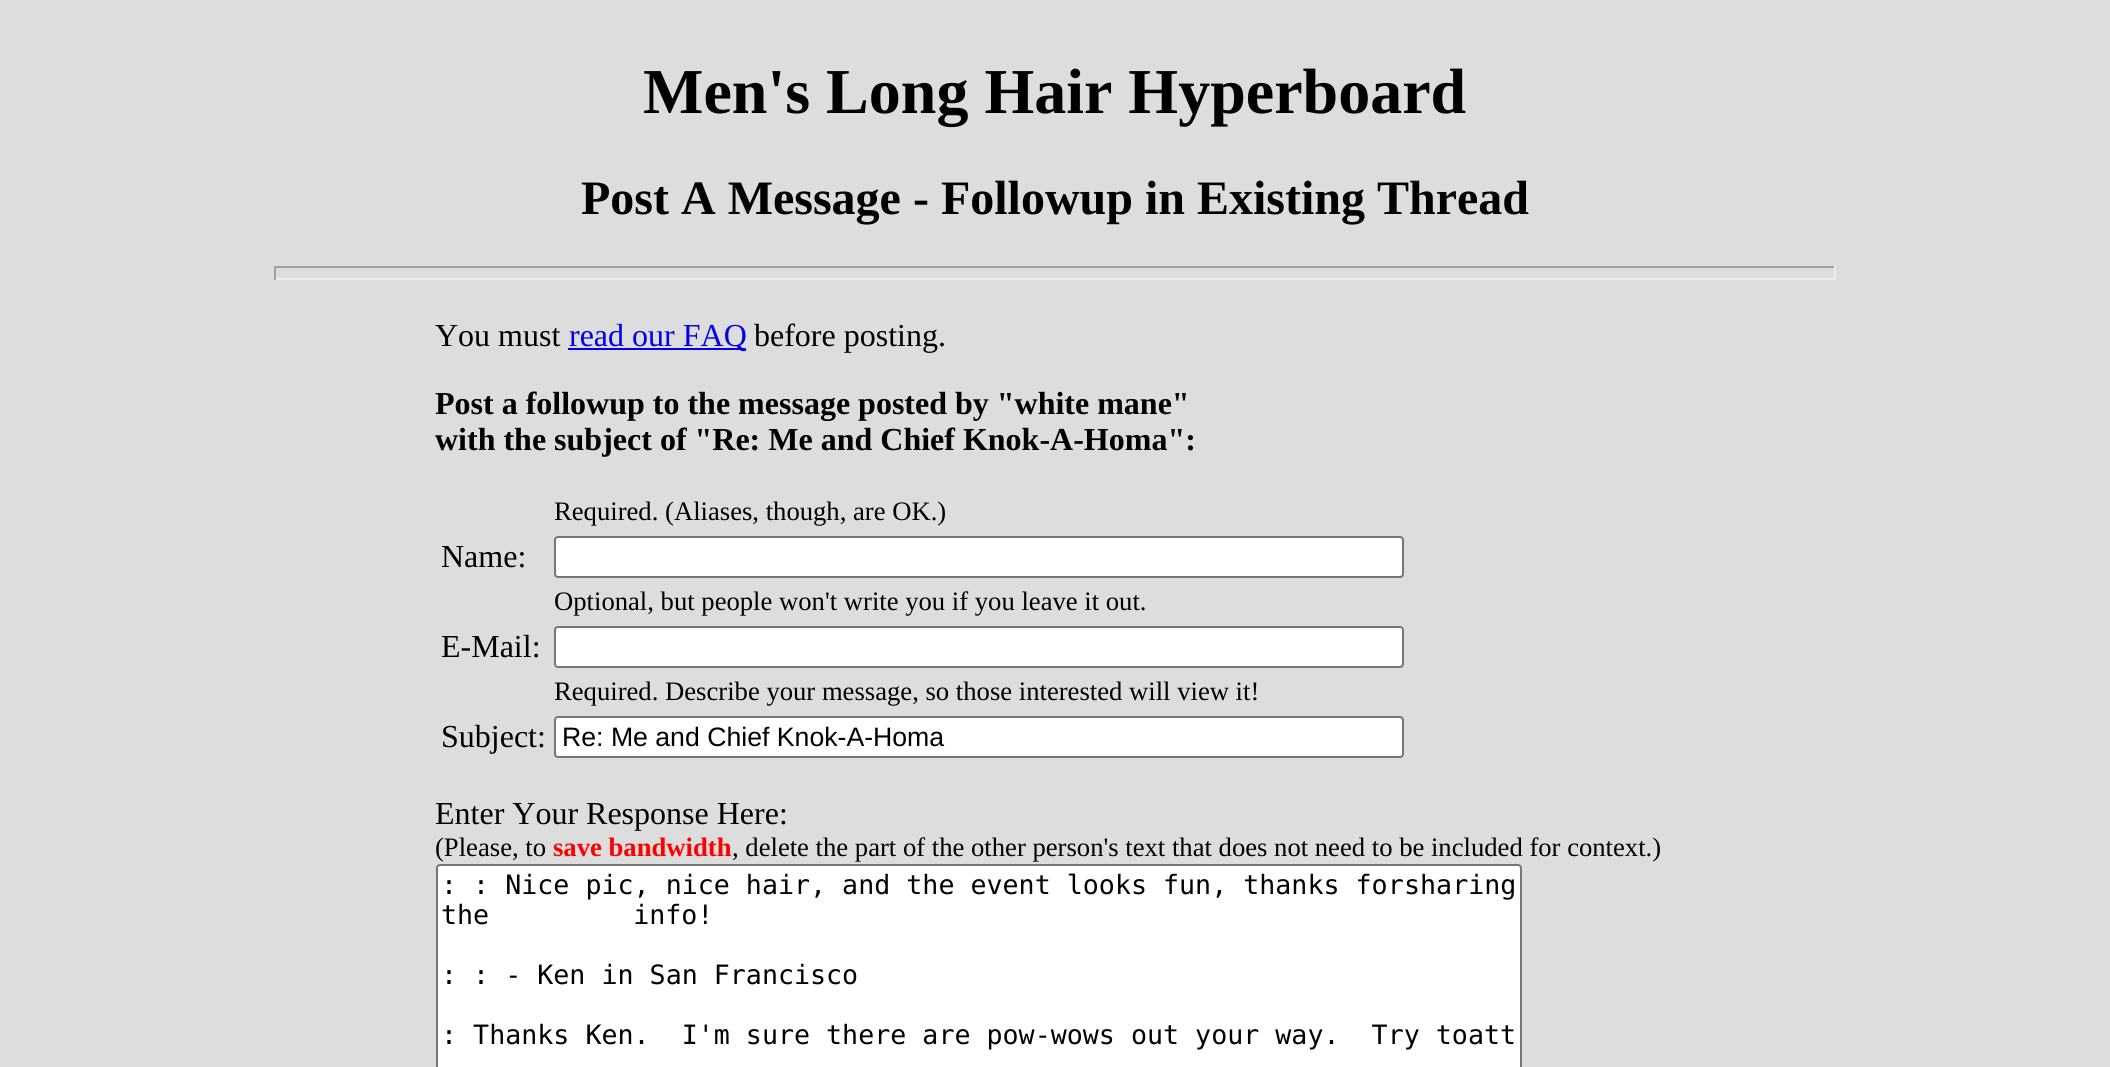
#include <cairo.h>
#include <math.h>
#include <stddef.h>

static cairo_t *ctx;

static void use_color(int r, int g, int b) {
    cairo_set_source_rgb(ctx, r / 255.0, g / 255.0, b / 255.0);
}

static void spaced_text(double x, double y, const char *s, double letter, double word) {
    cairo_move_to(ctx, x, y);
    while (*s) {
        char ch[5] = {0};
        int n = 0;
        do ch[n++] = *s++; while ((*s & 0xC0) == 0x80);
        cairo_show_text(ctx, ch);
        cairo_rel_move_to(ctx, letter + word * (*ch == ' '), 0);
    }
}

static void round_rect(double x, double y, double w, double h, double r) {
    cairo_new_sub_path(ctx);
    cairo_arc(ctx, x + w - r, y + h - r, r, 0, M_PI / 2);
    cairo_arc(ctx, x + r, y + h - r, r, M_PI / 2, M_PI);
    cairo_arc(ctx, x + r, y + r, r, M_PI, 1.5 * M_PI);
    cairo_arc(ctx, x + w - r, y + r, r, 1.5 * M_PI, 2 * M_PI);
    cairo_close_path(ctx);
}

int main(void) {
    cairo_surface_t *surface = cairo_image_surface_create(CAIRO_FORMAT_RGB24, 2110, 1067);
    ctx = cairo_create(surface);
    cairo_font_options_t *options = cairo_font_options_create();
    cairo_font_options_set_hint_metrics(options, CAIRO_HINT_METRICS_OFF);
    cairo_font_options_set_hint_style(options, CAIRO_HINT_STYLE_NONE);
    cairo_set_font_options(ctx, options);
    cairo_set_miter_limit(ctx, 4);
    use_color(221, 221, 221);
    cairo_paint(ctx);
    cairo_select_font_face(ctx, "Liberation Serif", CAIRO_FONT_SLANT_NORMAL, CAIRO_FONT_WEIGHT_BOLD);
    cairo_set_font_size(ctx, 64);
    use_color(0, 0, 0);
    cairo_move_to(ctx, 643, 113);
    cairo_show_text(ctx, "Men's Long Hair Hyperboard");
    cairo_set_font_size(ctx, 48);
    cairo_move_to(ctx, 581, 214);
    cairo_show_text(ctx, "Post A Message - Followup in Existing Thread");
    use_color(159, 159, 159);
    cairo_rectangle(ctx, 274, 266, 1562, 2);
    cairo_fill(ctx);
    use_color(238, 238, 238);
    cairo_rectangle(ctx, 1834, 266, 2, 14);
    cairo_fill(ctx);
    cairo_rectangle(ctx, 274, 278, 1562, 2);
    cairo_fill(ctx);
    use_color(159, 159, 159);
    cairo_rectangle(ctx, 274, 266, 2, 14);
    cairo_fill(ctx);
    cairo_select_font_face(ctx, "Liberation Serif", CAIRO_FONT_SLANT_NORMAL, CAIRO_FONT_WEIGHT_NORMAL);
    cairo_set_font_size(ctx, 32);
    use_color(0, 0, 0);
    cairo_move_to(ctx, 435, 346);
    cairo_show_text(ctx, "You must");
    use_color(0, 0, 238);
    cairo_rectangle(ctx, 568, 348, 178, 2);
    cairo_fill(ctx);
    cairo_move_to(ctx, 569, 346);
    cairo_show_text(ctx, "read our FAQ");
    use_color(0, 0, 0);
    cairo_move_to(ctx, 754, 346);
    cairo_show_text(ctx, "before posting.");
    cairo_select_font_face(ctx, "Liberation Serif", CAIRO_FONT_SLANT_NORMAL, CAIRO_FONT_WEIGHT_BOLD);
    cairo_move_to(ctx, 435, 414);
    cairo_show_text(ctx, "Post a followup to the message posted by \"white mane\"");
    cairo_move_to(ctx, 435, 450);
    cairo_show_text(ctx, "with the subject of \"Re: Me and Chief Knok-A-Homa\":");
    cairo_select_font_face(ctx, "Liberation Serif", CAIRO_FONT_SLANT_NORMAL, CAIRO_FONT_WEIGHT_NORMAL);
    cairo_set_font_size(ctx, 26.65);
    cairo_move_to(ctx, 554, 520);
    cairo_show_text(ctx, "Required. (Aliases, though, are OK.)");
    cairo_set_font_size(ctx, 32);
    cairo_move_to(ctx, 441, 567);
    cairo_show_text(ctx, "Name:");
    use_color(255, 255, 255);
    round_rect(555, 537, 848, 40, 3);
    cairo_fill_preserve(ctx);
    use_color(118, 118, 118);
    cairo_stroke(ctx);
    cairo_set_font_size(ctx, 26.65);
    use_color(0, 0, 0);
    cairo_move_to(ctx, 554, 610);
    cairo_show_text(ctx, "Optional, but people won't write you if you leave it out.");
    cairo_set_font_size(ctx, 32);
    cairo_move_to(ctx, 441, 657);
    cairo_show_text(ctx, "E-Mail:");
    use_color(255, 255, 255);
    round_rect(555, 627, 848, 40, 3);
    cairo_fill_preserve(ctx);
    use_color(118, 118, 118);
    cairo_stroke(ctx);
    cairo_set_font_size(ctx, 26.65);
    use_color(0, 0, 0);
    cairo_move_to(ctx, 554, 700);
    cairo_show_text(ctx, "Required. Describe your message, so those interested will view it!");
    cairo_set_font_size(ctx, 32);
    cairo_move_to(ctx, 441, 747);
    cairo_show_text(ctx, "Subject:");
    use_color(255, 255, 255);
    round_rect(555, 717, 848, 40, 3);
    cairo_fill_preserve(ctx);
    use_color(118, 118, 118);
    cairo_stroke(ctx);
    cairo_select_font_face(ctx, "Liberation Sans", CAIRO_FONT_SLANT_NORMAL, CAIRO_FONT_WEIGHT_NORMAL);
    cairo_set_font_size(ctx, 26.65);
    use_color(0, 0, 0);
    cairo_move_to(ctx, 562, 746);
    cairo_show_text(ctx, "Re: Me and Chief Knok-A-Homa");
    cairo_select_font_face(ctx, "Liberation Serif", CAIRO_FONT_SLANT_NORMAL, CAIRO_FONT_WEIGHT_NORMAL);
    cairo_set_font_size(ctx, 32);
    cairo_move_to(ctx, 435, 824);
    cairo_show_text(ctx, "Enter Your Response Here:");
    cairo_set_font_size(ctx, 26.65);
    cairo_move_to(ctx, 435, 856);
    cairo_show_text(ctx, "(Please, to");
    cairo_select_font_face(ctx, "Liberation Serif", CAIRO_FONT_SLANT_NORMAL, CAIRO_FONT_WEIGHT_BOLD);
    use_color(255, 0, 0);
    cairo_move_to(ctx, 553, 856);
    cairo_show_text(ctx, "save bandwidth");
    cairo_select_font_face(ctx, "Liberation Serif", CAIRO_FONT_SLANT_NORMAL, CAIRO_FONT_WEIGHT_NORMAL);
    use_color(0, 0, 0);
    cairo_move_to(ctx, 732, 856);
    cairo_show_text(ctx, ", delete the part of the other person's text that does not need to be included for context.)");
    use_color(255, 255, 255);
    round_rect(437, 865, 1084, 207, 3);
    cairo_fill_preserve(ctx);
    use_color(118, 118, 118);
    cairo_stroke(ctx);
    cairo_select_font_face(ctx, "DejaVu Sans Mono", CAIRO_FONT_SLANT_NORMAL, CAIRO_FONT_WEIGHT_NORMAL);
    use_color(0, 0, 0);
    cairo_move_to(ctx, 441, 894);
    cairo_show_text(ctx, ": : Nice pic, nice hair, and the event looks fun, thanks for");
    cairo_move_to(ctx, 1404, 894);
    cairo_show_text(ctx, "sharing");
    spaced_text(441, 924, "the info!", 0, 128);
    cairo_move_to(ctx, 441, 984);
    cairo_show_text(ctx, ": : - Ken in San Francisco");
    cairo_move_to(ctx, 441, 1044);
    cairo_show_text(ctx, ": Thanks Ken.  I'm sure there are pow-wows out your way.  Try to");
    cairo_move_to(ctx, 1468, 1044);
    cairo_show_text(ctx, "att");
    cairo_surface_write_to_png(surface, "result.png");
    cairo_font_options_destroy(options);
    cairo_destroy(ctx);
    cairo_surface_destroy(surface);
    return 0;
}
